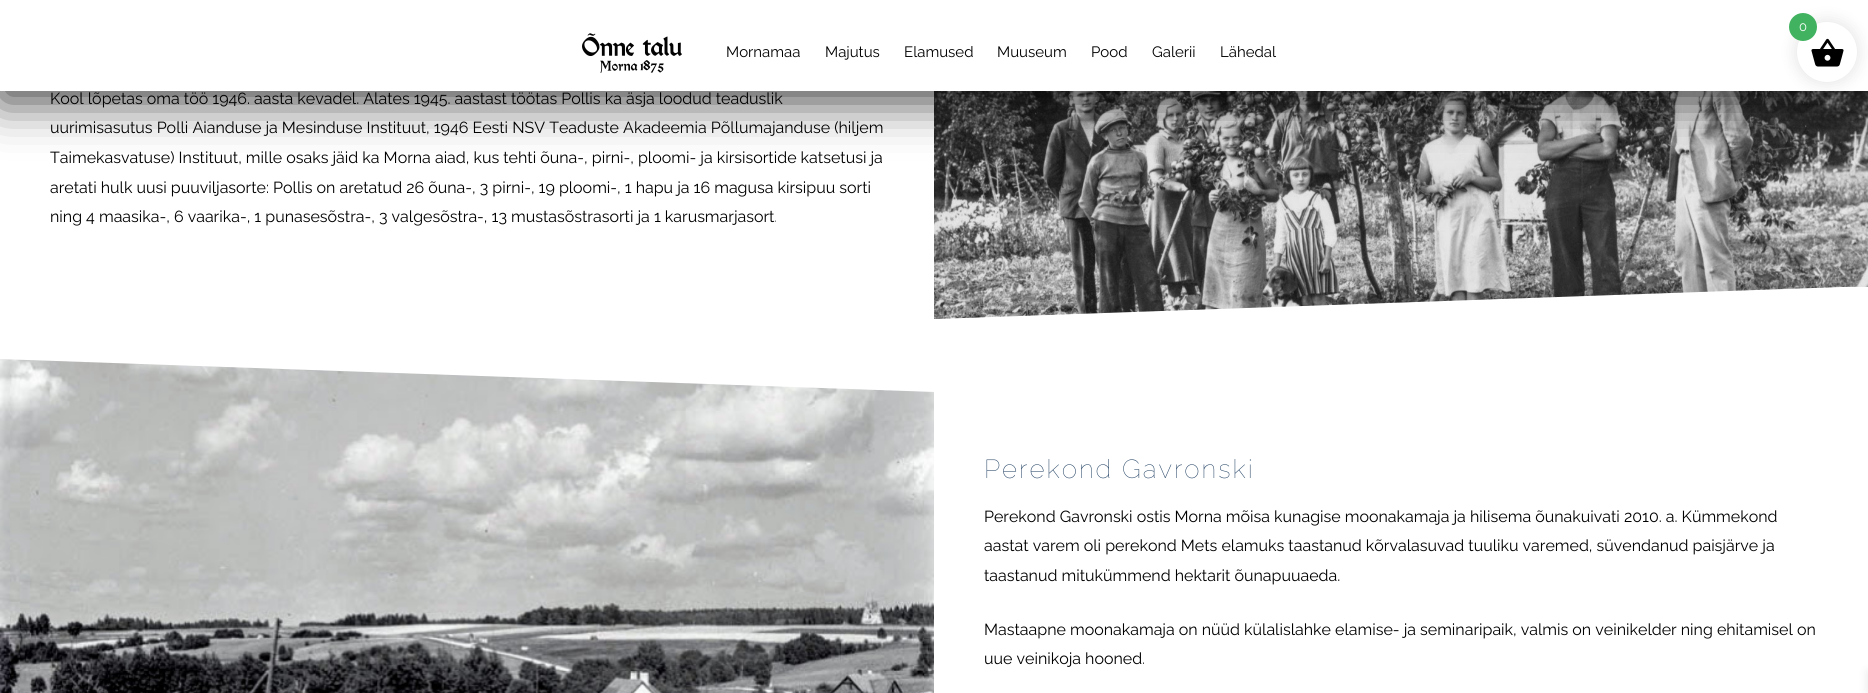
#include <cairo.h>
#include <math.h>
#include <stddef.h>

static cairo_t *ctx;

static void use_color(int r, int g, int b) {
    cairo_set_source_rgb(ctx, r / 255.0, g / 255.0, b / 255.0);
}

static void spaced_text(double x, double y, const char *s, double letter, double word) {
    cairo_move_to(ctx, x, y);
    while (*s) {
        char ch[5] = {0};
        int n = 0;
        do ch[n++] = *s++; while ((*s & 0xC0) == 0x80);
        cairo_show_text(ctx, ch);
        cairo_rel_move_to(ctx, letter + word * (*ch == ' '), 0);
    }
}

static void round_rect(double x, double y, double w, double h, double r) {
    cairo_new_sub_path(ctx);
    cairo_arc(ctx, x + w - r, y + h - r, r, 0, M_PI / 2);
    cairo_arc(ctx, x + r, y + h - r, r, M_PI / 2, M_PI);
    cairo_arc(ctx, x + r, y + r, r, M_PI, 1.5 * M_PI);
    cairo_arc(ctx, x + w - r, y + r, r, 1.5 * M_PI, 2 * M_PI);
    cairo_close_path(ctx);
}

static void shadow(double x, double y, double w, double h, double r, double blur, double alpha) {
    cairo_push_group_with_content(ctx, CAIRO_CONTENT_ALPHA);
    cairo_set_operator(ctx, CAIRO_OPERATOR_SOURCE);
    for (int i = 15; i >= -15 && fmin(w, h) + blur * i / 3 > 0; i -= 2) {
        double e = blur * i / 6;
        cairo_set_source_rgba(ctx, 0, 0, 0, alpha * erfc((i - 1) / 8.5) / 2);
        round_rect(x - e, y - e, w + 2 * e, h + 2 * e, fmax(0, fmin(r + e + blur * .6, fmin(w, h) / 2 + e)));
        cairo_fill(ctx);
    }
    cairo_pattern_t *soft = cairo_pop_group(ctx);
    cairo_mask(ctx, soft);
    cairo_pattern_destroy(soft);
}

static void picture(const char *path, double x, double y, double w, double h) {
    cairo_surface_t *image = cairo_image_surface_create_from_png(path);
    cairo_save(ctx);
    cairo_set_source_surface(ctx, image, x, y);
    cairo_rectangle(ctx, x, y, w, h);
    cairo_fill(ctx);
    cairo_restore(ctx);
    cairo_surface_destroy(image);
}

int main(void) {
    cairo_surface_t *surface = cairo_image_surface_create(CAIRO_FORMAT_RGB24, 1868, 693);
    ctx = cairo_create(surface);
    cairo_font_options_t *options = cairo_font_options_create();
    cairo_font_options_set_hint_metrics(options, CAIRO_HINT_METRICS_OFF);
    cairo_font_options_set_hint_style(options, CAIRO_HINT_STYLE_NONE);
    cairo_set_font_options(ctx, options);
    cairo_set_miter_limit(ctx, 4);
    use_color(255, 255, 255);
    cairo_paint(ctx);
    picture("img3.png", 934, 91, 934, 228);
    use_color(0, 0, 0);
    shadow(0, 10, 1868, 91, 0, 24, 0.75);
    use_color(255, 255, 255);
    cairo_rectangle(ctx, 0, 0, 1868, 91);
    cairo_fill(ctx);
    use_color(0, 0, 0);
    shadow(1795, 20, 64, 64, 32, 7.5, 0.1);
    use_color(255, 255, 255);
    cairo_arc(ctx, 1827, 52, 30, 0, 2 * M_PI);
    cairo_fill(ctx);
    picture("img1.png", 1811, 38, 33, 29);
    use_color(65, 178, 95);
    cairo_arc(ctx, 1803, 27, 14, 0, 2 * M_PI);
    cairo_fill(ctx);
    cairo_select_font_face(ctx, "Raleway", CAIRO_FONT_SLANT_NORMAL, CAIRO_FONT_WEIGHT_NORMAL);
    cairo_set_font_size(ctx, 13);
    use_color(255, 255, 255);
    cairo_move_to(ctx, 1799, 31);
    cairo_show_text(ctx, "0");
    use_color(0, 0, 0);
    shadow(1868, 672, 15, 20, 0, 5, 0.1);
    picture("img2.png", 582, 33, 100, 40);
    cairo_set_font_size(ctx, 15);
    use_color(0, 0, 0);
    cairo_move_to(ctx, 726, 57);
    cairo_show_text(ctx, "Mornamaa");
    cairo_move_to(ctx, 825, 57);
    cairo_show_text(ctx, "Majutus");
    cairo_move_to(ctx, 904, 57);
    cairo_show_text(ctx, "Elamused");
    cairo_move_to(ctx, 997, 57);
    cairo_show_text(ctx, "Muuseum");
    cairo_move_to(ctx, 1091, 57);
    cairo_show_text(ctx, "Pood");
    cairo_move_to(ctx, 1152, 57);
    cairo_show_text(ctx, "Galerii");
    cairo_move_to(ctx, 1220, 57);
    cairo_show_text(ctx, "Lähedal");
    cairo_set_font_size(ctx, 16);
    cairo_move_to(ctx, 50, 104);
    cairo_show_text(ctx, "Kool lõpetas oma töö 1946. aasta kevadel. Alates 1945. aastast töötas Pollis ka äsja loodud teaduslik");
    cairo_move_to(ctx, 50, 133);
    cairo_show_text(ctx, "uurimisasutus Polli Aianduse ja Mesinduse Instituut, 1946 Eesti NSV Teaduste Akadeemia Põllumajanduse (hiljem");
    cairo_move_to(ctx, 50, 163);
    cairo_show_text(ctx, "Taimekasvatuse) Instituut, mille osaks jäid ka Morna aiad, kus tehti õuna-, pirni-, ploomi- ja kirsisortide katsetusi ja");
    cairo_move_to(ctx, 50, 193);
    cairo_show_text(ctx, "aretati hulk uusi puuviljasorte: Pollis on aretatud 26 õuna-, 3 pirni-, 19 ploomi-, 1 hapu ja 16 magusa kirsipuu sorti");
    cairo_move_to(ctx, 50, 222);
    cairo_show_text(ctx, "ning 4 maasika-, 6 vaarika-, 1 punasesõstra-, 3 valgesõstra-, 13 mustasõstrasorti ja 1 karusmarjasort.");
    cairo_save(ctx);
    cairo_rectangle(ctx, 0, 287, 1868, 70);
    cairo_clip(ctx);
    use_color(255, 255, 255);
    cairo_new_path(ctx);
    cairo_move_to(ctx, -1, 352);
    cairo_line_to(ctx, -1, 356);
    cairo_line_to(ctx, 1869, 356);
    cairo_line_to(ctx, 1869, 286);
    cairo_close_path(ctx);
    cairo_fill(ctx);
    cairo_restore(ctx);
    picture("img4.png", 0, 359, 934, 334);
    use_color(255, 255, 255);
    cairo_new_path(ctx);
    cairo_move_to(ctx, -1, 359);
    cairo_line_to(ctx, -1, 355);
    cairo_line_to(ctx, 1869, 355);
    cairo_line_to(ctx, 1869, 425);
    cairo_close_path(ctx);
    cairo_fill(ctx);
    cairo_select_font_face(ctx, "Raleway Thin", CAIRO_FONT_SLANT_NORMAL, CAIRO_FONT_WEIGHT_NORMAL);
    cairo_set_font_size(ctx, 26);
    use_color(28, 60, 95);
    spaced_text(984, 478, "Perekond Gavronski", 2, 0);
    cairo_select_font_face(ctx, "Raleway", CAIRO_FONT_SLANT_NORMAL, CAIRO_FONT_WEIGHT_NORMAL);
    cairo_set_font_size(ctx, 16);
    use_color(0, 0, 0);
    cairo_move_to(ctx, 984, 522);
    cairo_show_text(ctx, "Perekond Gavronski ostis Morna mõisa kunagise moonakamaja ja hilisema õunakuivati 2010. a. Kümmekond");
    cairo_move_to(ctx, 984, 551);
    cairo_show_text(ctx, "aastat varem oli perekond Mets elamuks taastanud kõrvalasuvad tuuliku varemed, süvendanud paisjärve ja");
    cairo_move_to(ctx, 984, 581);
    cairo_show_text(ctx, "taastanud mitukümmend hektarit õunapuuaeda.");
    cairo_move_to(ctx, 984, 635);
    cairo_show_text(ctx, "Mastaapne moonakamaja on nüüd külalislahke elamise- ja seminaripaik, valmis on veinikelder ning ehitamisel on");
    cairo_move_to(ctx, 984, 664);
    cairo_show_text(ctx, "uue veinikoja hooned.");
    cairo_surface_write_to_png(surface, "result.png");
    cairo_font_options_destroy(options);
    cairo_destroy(ctx);
    cairo_surface_destroy(surface);
    return 0;
}
